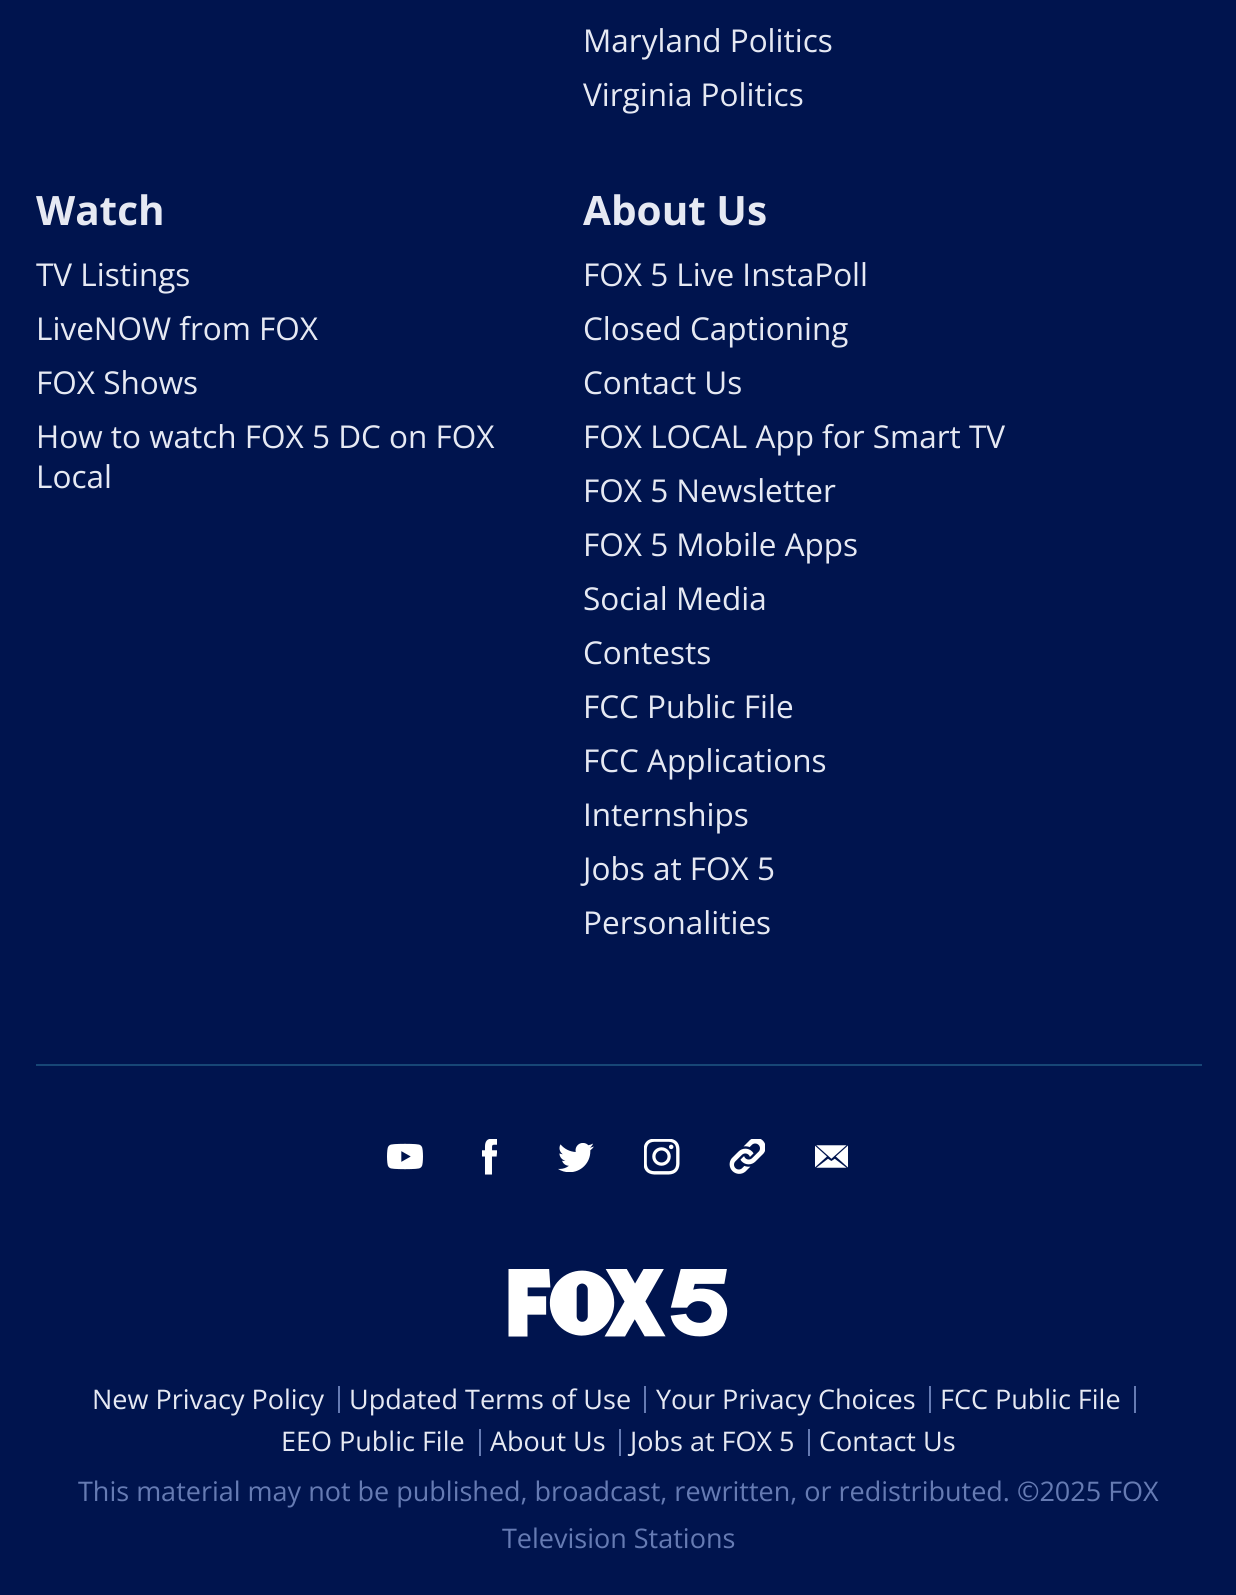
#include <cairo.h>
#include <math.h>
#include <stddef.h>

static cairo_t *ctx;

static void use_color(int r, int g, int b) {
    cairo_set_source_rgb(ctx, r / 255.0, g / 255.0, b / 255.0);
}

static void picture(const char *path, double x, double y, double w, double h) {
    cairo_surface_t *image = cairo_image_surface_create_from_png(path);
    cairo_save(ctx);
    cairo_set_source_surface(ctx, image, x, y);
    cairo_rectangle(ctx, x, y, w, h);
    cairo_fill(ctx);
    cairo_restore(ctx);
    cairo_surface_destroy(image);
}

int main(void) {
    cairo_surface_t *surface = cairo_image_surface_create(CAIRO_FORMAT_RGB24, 1236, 1595);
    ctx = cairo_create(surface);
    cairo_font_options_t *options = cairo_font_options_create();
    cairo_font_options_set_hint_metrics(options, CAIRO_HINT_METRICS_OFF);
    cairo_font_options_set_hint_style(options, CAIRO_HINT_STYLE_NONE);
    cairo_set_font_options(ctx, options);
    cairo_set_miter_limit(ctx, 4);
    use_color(0, 20, 78);
    cairo_paint(ctx);
    cairo_select_font_face(ctx, "Open Sans", CAIRO_FONT_SLANT_NORMAL, CAIRO_FONT_WEIGHT_NORMAL);
    cairo_set_font_size(ctx, 31.5);
    use_color(230, 233, 243);
    cairo_move_to(ctx, 583, 52);
    cairo_show_text(ctx, "Maryland Politics");
    cairo_move_to(ctx, 583, 106);
    cairo_show_text(ctx, "Virginia Politics");
    cairo_select_font_face(ctx, "Open Sans", CAIRO_FONT_SLANT_NORMAL, CAIRO_FONT_WEIGHT_BOLD);
    cairo_set_font_size(ctx, 40.5);
    cairo_move_to(ctx, 36, 225);
    cairo_show_text(ctx, "Watch");
    cairo_select_font_face(ctx, "Open Sans", CAIRO_FONT_SLANT_NORMAL, CAIRO_FONT_WEIGHT_NORMAL);
    cairo_set_font_size(ctx, 31.5);
    cairo_move_to(ctx, 36, 286);
    cairo_show_text(ctx, "TV Listings");
    cairo_move_to(ctx, 36, 340);
    cairo_show_text(ctx, "LiveNOW from FOX");
    cairo_move_to(ctx, 36, 394);
    cairo_show_text(ctx, "FOX Shows");
    cairo_move_to(ctx, 36, 448);
    cairo_show_text(ctx, "How to watch FOX 5 DC on FOX");
    cairo_move_to(ctx, 36, 488);
    cairo_show_text(ctx, "Local");
    cairo_select_font_face(ctx, "Open Sans", CAIRO_FONT_SLANT_NORMAL, CAIRO_FONT_WEIGHT_BOLD);
    cairo_set_font_size(ctx, 40.5);
    cairo_move_to(ctx, 583, 225);
    cairo_show_text(ctx, "About Us");
    cairo_select_font_face(ctx, "Open Sans", CAIRO_FONT_SLANT_NORMAL, CAIRO_FONT_WEIGHT_NORMAL);
    cairo_set_font_size(ctx, 31.5);
    cairo_move_to(ctx, 583, 286);
    cairo_show_text(ctx, "FOX 5 Live InstaPoll");
    cairo_move_to(ctx, 583, 340);
    cairo_show_text(ctx, "Closed Captioning");
    cairo_move_to(ctx, 583, 394);
    cairo_show_text(ctx, "Contact Us");
    cairo_move_to(ctx, 583, 448);
    cairo_show_text(ctx, "FOX LOCAL App for Smart TV");
    cairo_move_to(ctx, 583, 502);
    cairo_show_text(ctx, "FOX 5 Newsletter");
    cairo_move_to(ctx, 583, 556);
    cairo_show_text(ctx, "FOX 5 Mobile Apps");
    cairo_move_to(ctx, 583, 610);
    cairo_show_text(ctx, "Social Media");
    cairo_move_to(ctx, 583, 664);
    cairo_show_text(ctx, "Contests");
    cairo_move_to(ctx, 583, 718);
    cairo_show_text(ctx, "FCC Public File");
    cairo_move_to(ctx, 583, 772);
    cairo_show_text(ctx, "FCC Applications");
    cairo_move_to(ctx, 583, 826);
    cairo_show_text(ctx, "Internships");
    cairo_move_to(ctx, 583, 880);
    cairo_show_text(ctx, "Jobs at FOX 5");
    cairo_move_to(ctx, 583, 934);
    cairo_show_text(ctx, "Personalities");
    use_color(23, 70, 118);
    cairo_rectangle(ctx, 36, 1064, 1166, 2);
    cairo_fill(ctx);
    picture("img1.png", 387, 1143, 36, 27);
    picture("img2.png", 482, 1139, 15, 36);
    picture("img3.png", 558, 1143, 36, 29);
    picture("img4.png", 644, 1139, 36, 36);
    picture("img5.png", 729, 1139, 36, 35);
    picture("img6.png", 815, 1145, 33, 23);
    picture("img7.png", 508, 1269, 220, 68);
    cairo_set_font_size(ctx, 27);
    use_color(230, 233, 243);
    cairo_move_to(ctx, 92, 1409);
    cairo_show_text(ctx, "New Privacy Policy");
    use_color(102, 123, 179);
    cairo_rectangle(ctx, 338, 1386, 2, 27);
    cairo_fill(ctx);
    use_color(230, 233, 243);
    cairo_move_to(ctx, 349, 1409);
    cairo_show_text(ctx, "Updated Terms of Use");
    use_color(102, 123, 179);
    cairo_rectangle(ctx, 644, 1386, 2, 27);
    cairo_fill(ctx);
    use_color(230, 233, 243);
    cairo_move_to(ctx, 656, 1409);
    cairo_show_text(ctx, "Your Privacy Choices");
    use_color(102, 123, 179);
    cairo_rectangle(ctx, 929, 1386, 2, 27);
    cairo_fill(ctx);
    use_color(230, 233, 243);
    cairo_move_to(ctx, 940, 1409);
    cairo_show_text(ctx, "FCC Public File");
    use_color(102, 123, 179);
    cairo_rectangle(ctx, 1134, 1386, 2, 27);
    cairo_fill(ctx);
    use_color(230, 233, 243);
    cairo_move_to(ctx, 281, 1451);
    cairo_show_text(ctx, "EEO Public File");
    use_color(102, 123, 179);
    cairo_rectangle(ctx, 479, 1429, 2, 27);
    cairo_fill(ctx);
    use_color(230, 233, 243);
    cairo_move_to(ctx, 490, 1451);
    cairo_show_text(ctx, "About Us");
    use_color(102, 123, 179);
    cairo_rectangle(ctx, 619, 1429, 2, 27);
    cairo_fill(ctx);
    use_color(230, 233, 243);
    cairo_move_to(ctx, 630, 1451);
    cairo_show_text(ctx, "Jobs at FOX 5");
    use_color(102, 123, 179);
    cairo_rectangle(ctx, 808, 1429, 2, 27);
    cairo_fill(ctx);
    use_color(230, 233, 243);
    cairo_move_to(ctx, 819, 1451);
    cairo_show_text(ctx, "Contact Us");
    use_color(102, 123, 179);
    cairo_move_to(ctx, 78, 1501);
    cairo_show_text(ctx, "This material may not be published, broadcast, rewritten, or redistributed. ©2025 FOX");
    cairo_move_to(ctx, 502, 1548);
    cairo_show_text(ctx, "Television Stations");
    cairo_surface_write_to_png(surface, "result.png");
    cairo_font_options_destroy(options);
    cairo_destroy(ctx);
    cairo_surface_destroy(surface);
    return 0;
}
